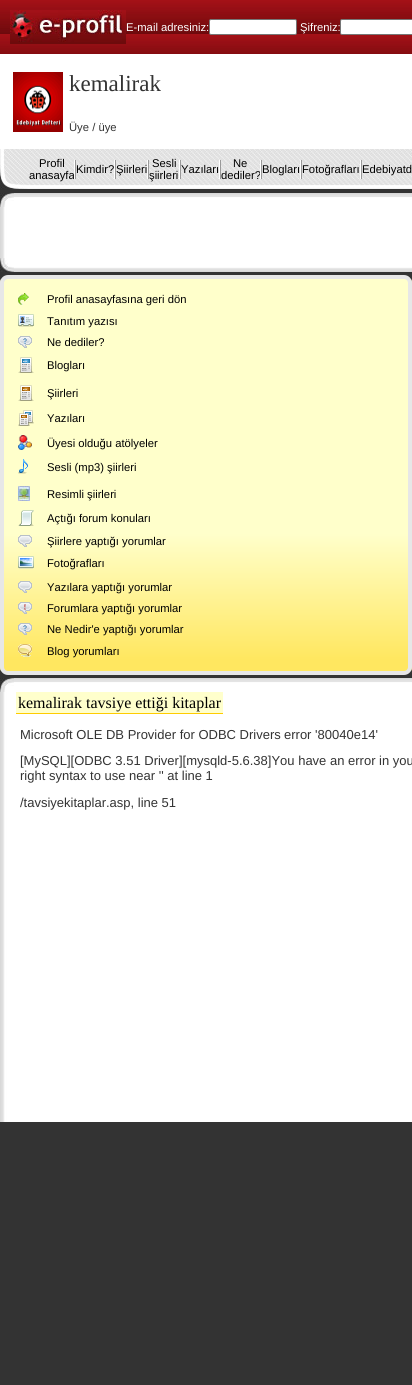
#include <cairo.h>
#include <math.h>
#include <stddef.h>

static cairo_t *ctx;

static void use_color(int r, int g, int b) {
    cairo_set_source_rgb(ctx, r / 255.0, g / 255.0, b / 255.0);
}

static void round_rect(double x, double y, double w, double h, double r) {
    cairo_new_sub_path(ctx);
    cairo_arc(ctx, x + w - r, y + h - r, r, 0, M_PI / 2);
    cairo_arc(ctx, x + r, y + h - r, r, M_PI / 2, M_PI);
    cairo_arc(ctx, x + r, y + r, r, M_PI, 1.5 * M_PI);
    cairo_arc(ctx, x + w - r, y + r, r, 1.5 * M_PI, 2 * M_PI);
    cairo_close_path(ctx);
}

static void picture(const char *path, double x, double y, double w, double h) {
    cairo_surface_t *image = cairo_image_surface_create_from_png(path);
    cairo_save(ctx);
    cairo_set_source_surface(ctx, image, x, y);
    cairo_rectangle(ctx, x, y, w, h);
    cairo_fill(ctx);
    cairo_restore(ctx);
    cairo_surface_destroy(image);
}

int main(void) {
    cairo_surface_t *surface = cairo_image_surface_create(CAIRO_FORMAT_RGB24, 412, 1385);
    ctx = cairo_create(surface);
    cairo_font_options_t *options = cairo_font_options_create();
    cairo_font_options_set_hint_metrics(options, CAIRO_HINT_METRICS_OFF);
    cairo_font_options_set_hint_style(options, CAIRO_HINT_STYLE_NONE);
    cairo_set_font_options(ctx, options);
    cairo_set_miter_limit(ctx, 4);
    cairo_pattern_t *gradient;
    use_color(51, 51, 51);
    cairo_paint(ctx);
    picture("img1.png", 0, 0, 412, 54);
    picture("img2.png", 10, 10, 116, 34);
    cairo_select_font_face(ctx, "Liberation Sans", CAIRO_FONT_SLANT_NORMAL, CAIRO_FONT_WEIGHT_NORMAL);
    cairo_set_font_size(ctx, 11.25);
    use_color(255, 255, 255);
    cairo_move_to(ctx, 126, 31);
    cairo_show_text(ctx, "E-mail adresiniz:");
    round_rect(209.5, 19.5, 87, 15, 1.5);
    cairo_fill_preserve(ctx);
    use_color(118, 118, 118);
    cairo_set_line_width(ctx, 1);
    cairo_stroke(ctx);
    use_color(255, 255, 255);
    cairo_move_to(ctx, 300, 31);
    cairo_show_text(ctx, "Şifreniz:");
    round_rect(340.5, 19.5, 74, 15, 1.5);
    cairo_fill_preserve(ctx);
    use_color(118, 118, 118);
    cairo_stroke(ctx);
    use_color(255, 255, 255);
    cairo_rectangle(ctx, 0, 54, 412, 95);
    cairo_fill(ctx);
    picture("img3.png", 13, 72, 50, 60);
    cairo_select_font_face(ctx, "Liberation Serif", CAIRO_FONT_SLANT_NORMAL, CAIRO_FONT_WEIGHT_NORMAL);
    cairo_set_font_size(ctx, 23);
    use_color(51, 51, 51);
    cairo_move_to(ctx, 69, 91);
    cairo_show_text(ctx, "kemalirak");
    cairo_select_font_face(ctx, "Liberation Sans", CAIRO_FONT_SLANT_NORMAL, CAIRO_FONT_WEIGHT_NORMAL);
    cairo_set_font_size(ctx, 11.25);
    cairo_move_to(ctx, 69, 131);
    cairo_show_text(ctx, "Üye / üye");
    picture("img4.png", 0, 149, 29, 40);
    picture("img5.png", 29, 149, 383, 40);
    use_color(0, 0, 0);
    cairo_move_to(ctx, 39, 167);
    cairo_show_text(ctx, "Profil");
    cairo_move_to(ctx, 29, 179);
    cairo_show_text(ctx, "anasayfa");
    cairo_move_to(ctx, 152, 167);
    cairo_show_text(ctx, "Sesli");
    cairo_move_to(ctx, 149, 179);
    cairo_show_text(ctx, "şiirleri");
    cairo_move_to(ctx, 233, 167);
    cairo_show_text(ctx, "Ne");
    cairo_move_to(ctx, 221, 179);
    cairo_show_text(ctx, "dediler?");
    picture("img6.png", 74, 160, 2, 19);
    cairo_move_to(ctx, 76, 173);
    cairo_show_text(ctx, "Kimdir?");
    picture("img6.png", 114, 160, 2, 19);
    cairo_move_to(ctx, 116, 173);
    cairo_show_text(ctx, "Şiirleri");
    picture("img6.png", 147, 160, 2, 19);
    picture("img6.png", 179, 160, 2, 19);
    picture("img6.png", 219, 160, 2, 19);
    picture("img6.png", 260, 160, 2, 19);
    picture("img6.png", 300, 160, 2, 19);
    picture("img6.png", 360, 160, 2, 19);
    cairo_move_to(ctx, 181, 173);
    cairo_show_text(ctx, "Yazıları");
    cairo_move_to(ctx, 262, 173);
    cairo_show_text(ctx, "Blogları");
    cairo_move_to(ctx, 302, 173);
    cairo_show_text(ctx, "Fotoğrafları");
    cairo_move_to(ctx, 362, 173);
    cairo_show_text(ctx, "Edebiyatd");
    picture("img7.png", 0, 193, 14, 14);
    picture("img8.png", 14, 193, 398, 14);
    picture("img9.png", 0, 207, 14, 51);
    use_color(255, 255, 255);
    cairo_rectangle(ctx, 14, 207, 398, 51);
    cairo_fill(ctx);
    picture("img10.png", 0, 258, 14, 14);
    picture("img11.png", 14, 258, 398, 14);
    cairo_save(ctx);
    round_rect(0, 275, 412, 400, 8);
    cairo_clip(ctx);
    gradient = cairo_pattern_create_linear(206, 279, 206, 671);
    cairo_pattern_add_color_stop_rgba(gradient, 0.15, 1, 1, 0.796, 1);
    cairo_pattern_add_color_stop_rgba(gradient, 0.65, 1, 1, 0.796, 1);
    cairo_pattern_add_color_stop_rgba(gradient, 0.97, 1, 0.906, 0.376, 1);
    cairo_set_source(ctx, gradient);
    cairo_pattern_destroy(gradient);
    cairo_rectangle(ctx, 0, 279, 412, 392);
    cairo_fill(ctx);
    cairo_restore(ctx);
    round_rect(2, 277, 408, 396, 6);
    use_color(231, 231, 231);
    cairo_set_line_width(ctx, 4);
    cairo_stroke(ctx);
    picture("img12.png", 18, 293, 11, 12);
    use_color(0, 0, 0);
    cairo_move_to(ctx, 47, 303);
    cairo_show_text(ctx, "Profil anasayfasına geri dön");
    picture("img13.png", 18, 314, 16, 13);
    cairo_move_to(ctx, 47, 325);
    cairo_show_text(ctx, "Tanıtım yazısı");
    picture("img14.png", 18, 336, 14, 12);
    cairo_move_to(ctx, 47, 346);
    cairo_show_text(ctx, "Ne dediler?");
    picture("img15.png", 18, 357, 16, 16);
    cairo_move_to(ctx, 47, 369);
    cairo_show_text(ctx, "Blogları");
    picture("img16.png", 18, 385, 16, 16);
    cairo_move_to(ctx, 47, 397);
    cairo_show_text(ctx, "Şiirleri");
    picture("img17.png", 18, 410, 16, 16);
    cairo_move_to(ctx, 47, 422);
    cairo_show_text(ctx, "Yazıları");
    picture("img18.png", 18, 435, 14, 15);
    cairo_move_to(ctx, 47, 447);
    cairo_show_text(ctx, "Üyesi olduğu atölyeler");
    picture("img19.png", 18, 459, 10, 15);
    cairo_move_to(ctx, 47, 471);
    cairo_show_text(ctx, "Sesli (mp3) şiirleri");
    picture("img20.png", 18, 486, 12, 15);
    cairo_move_to(ctx, 47, 498);
    cairo_show_text(ctx, "Resimli şiirleri");
    picture("img21.png", 18, 510, 16, 16);
    cairo_move_to(ctx, 47, 522);
    cairo_show_text(ctx, "Açtığı forum konuları");
    picture("img22.png", 18, 535, 14, 12);
    cairo_move_to(ctx, 47, 545);
    cairo_show_text(ctx, "Şiirlere yaptığı yorumlar");
    picture("img23.png", 18, 556, 16, 13);
    cairo_move_to(ctx, 47, 567);
    cairo_show_text(ctx, "Fotoğrafları");
    picture("img24.png", 18, 581, 14, 12);
    cairo_move_to(ctx, 47, 591);
    cairo_show_text(ctx, "Yazılara yaptığı yorumlar");
    picture("img25.png", 18, 602, 14, 12);
    cairo_move_to(ctx, 47, 612);
    cairo_show_text(ctx, "Forumlara yaptığı yorumlar");
    picture("img26.png", 18, 623, 14, 12);
    cairo_move_to(ctx, 47, 633);
    cairo_show_text(ctx, "Ne Nedir'e yaptığı yorumlar");
    picture("img27.png", 18, 644, 14, 13);
    cairo_move_to(ctx, 47, 655);
    cairo_show_text(ctx, "Blog yorumları");
    picture("img7.png", 0, 678, 14, 14);
    picture("img8.png", 14, 678, 398, 14);
    picture("img28.png", 0, 692, 14, 430);
    use_color(255, 255, 255);
    cairo_rectangle(ctx, 14, 692, 398, 430);
    cairo_fill(ctx);
    use_color(255, 255, 204);
    cairo_rectangle(ctx, 16, 692, 207, 21);
    cairo_fill(ctx);
    cairo_select_font_face(ctx, "Liberation Serif", CAIRO_FONT_SLANT_NORMAL, CAIRO_FONT_WEIGHT_NORMAL);
    cairo_set_font_size(ctx, 16);
    use_color(0, 0, 0);
    cairo_move_to(ctx, 18, 708);
    cairo_show_text(ctx, "kemalirak tavsiye ettiği kitaplar");
    use_color(255, 204, 0);
    cairo_rectangle(ctx, 16, 713, 207, 1);
    cairo_fill(ctx);
    cairo_select_font_face(ctx, "Liberation Sans", CAIRO_FONT_SLANT_NORMAL, CAIRO_FONT_WEIGHT_NORMAL);
    cairo_set_font_size(ctx, 13);
    use_color(51, 51, 51);
    cairo_move_to(ctx, 20, 739);
    cairo_show_text(ctx, "Microsoft OLE DB Provider for ODBC Drivers");
    cairo_move_to(ctx, 284, 739);
    cairo_show_text(ctx, "error '80040e14'");
    cairo_move_to(ctx, 20, 765);
    cairo_show_text(ctx, "[MySQL][ODBC 3.51 Driver][mysqld-5.6.38]You have an error in you");
    cairo_move_to(ctx, 20, 780);
    cairo_show_text(ctx, "right syntax to use near '' at line 1");
    cairo_move_to(ctx, 20, 807);
    cairo_show_text(ctx, "/tavsiyekitaplar.asp, line 51");
    cairo_surface_write_to_png(surface, "result.png");
    cairo_font_options_destroy(options);
    cairo_destroy(ctx);
    cairo_surface_destroy(surface);
    return 0;
}
